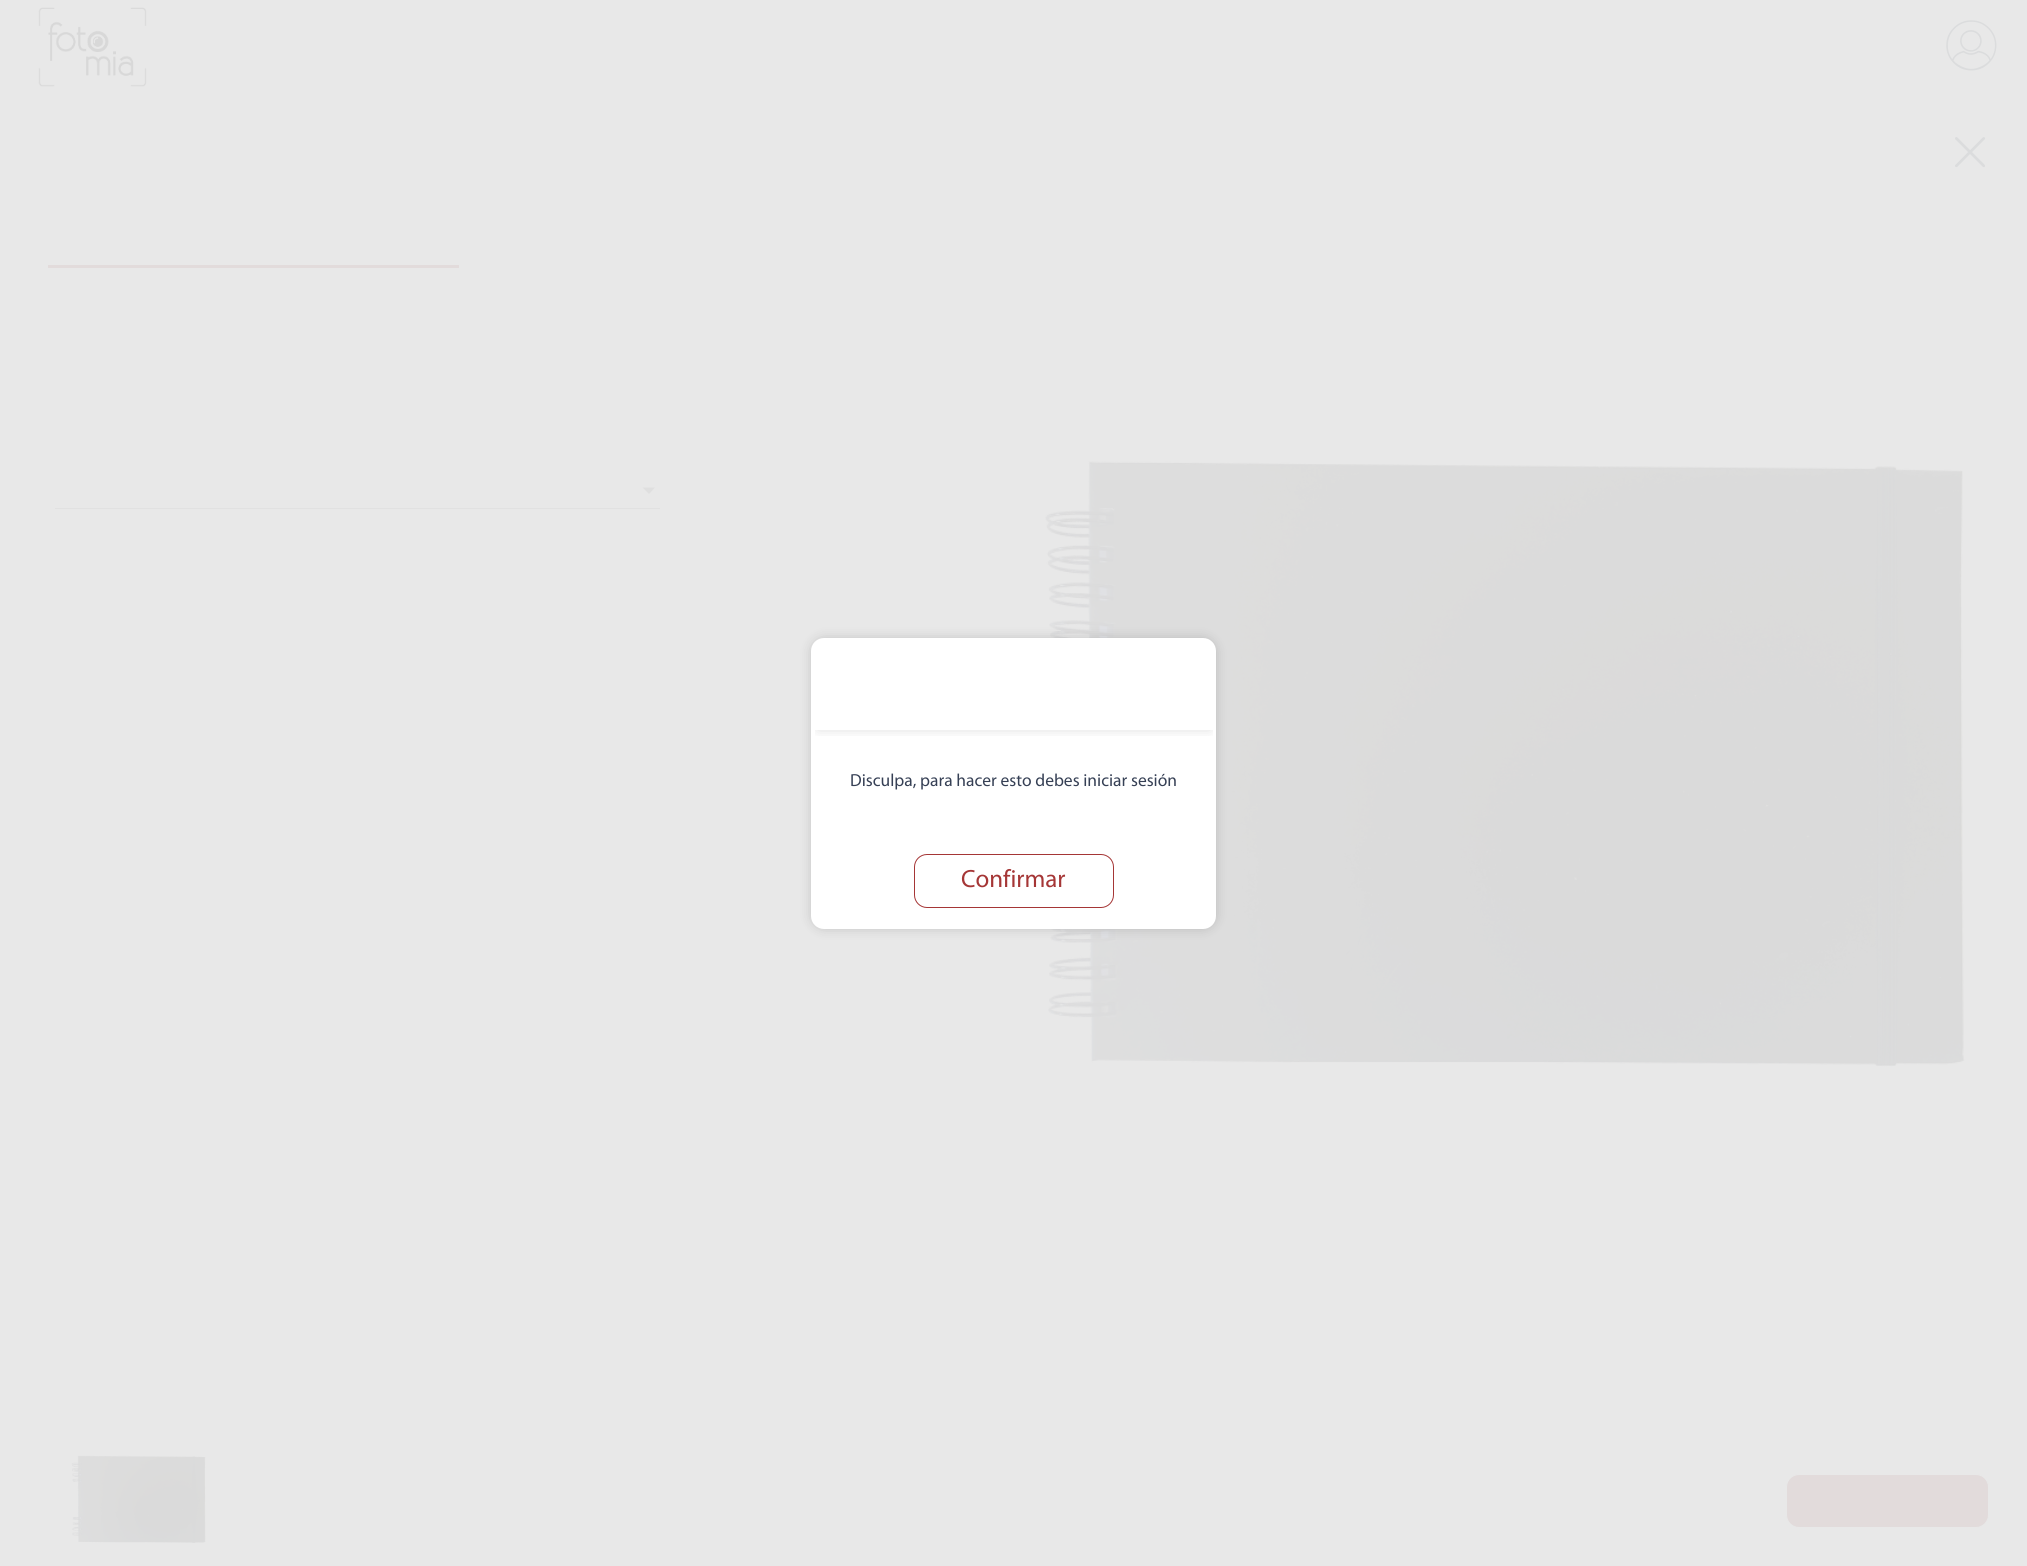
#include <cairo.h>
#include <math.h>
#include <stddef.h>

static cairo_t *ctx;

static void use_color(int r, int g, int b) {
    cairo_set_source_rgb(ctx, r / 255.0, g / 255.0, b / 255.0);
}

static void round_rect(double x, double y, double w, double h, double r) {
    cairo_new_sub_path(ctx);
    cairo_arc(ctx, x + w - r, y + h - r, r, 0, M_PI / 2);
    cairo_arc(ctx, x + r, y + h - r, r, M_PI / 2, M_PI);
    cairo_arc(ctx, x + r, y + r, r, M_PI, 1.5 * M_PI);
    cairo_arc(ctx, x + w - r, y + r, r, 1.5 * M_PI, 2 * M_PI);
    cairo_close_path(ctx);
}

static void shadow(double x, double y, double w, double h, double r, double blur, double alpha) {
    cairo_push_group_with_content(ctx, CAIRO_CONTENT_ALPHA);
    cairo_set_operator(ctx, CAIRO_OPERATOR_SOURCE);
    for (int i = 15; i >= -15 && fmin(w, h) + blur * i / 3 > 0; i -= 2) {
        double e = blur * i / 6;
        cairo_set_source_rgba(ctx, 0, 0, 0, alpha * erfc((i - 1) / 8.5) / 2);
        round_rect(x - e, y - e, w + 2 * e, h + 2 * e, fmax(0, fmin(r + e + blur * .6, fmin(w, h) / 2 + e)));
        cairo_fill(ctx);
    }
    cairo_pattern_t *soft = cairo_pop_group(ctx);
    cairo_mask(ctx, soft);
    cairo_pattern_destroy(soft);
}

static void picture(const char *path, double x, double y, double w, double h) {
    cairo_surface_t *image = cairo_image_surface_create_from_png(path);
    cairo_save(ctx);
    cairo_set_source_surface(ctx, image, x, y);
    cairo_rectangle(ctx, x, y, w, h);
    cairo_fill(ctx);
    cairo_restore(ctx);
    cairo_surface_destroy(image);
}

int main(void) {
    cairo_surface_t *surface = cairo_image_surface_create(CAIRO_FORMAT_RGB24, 2027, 1566);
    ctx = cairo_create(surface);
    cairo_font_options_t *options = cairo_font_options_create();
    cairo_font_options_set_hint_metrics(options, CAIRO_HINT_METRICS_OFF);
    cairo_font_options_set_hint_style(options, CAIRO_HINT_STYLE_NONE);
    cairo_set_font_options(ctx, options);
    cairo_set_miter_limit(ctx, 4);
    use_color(232, 232, 232);
    cairo_paint(ctx);
    picture("img1.png", 38, 7, 109, 80);
    picture("img2.png", 1946, 20, 51, 51);
    picture("img3.png", 1955, 137, 31, 31);
    use_color(226, 219, 219);
    cairo_rectangle(ctx, 48, 265, 411, 3);
    cairo_fill(ctx);
    use_color(223, 223, 223);
    cairo_new_path(ctx);
    cairo_move_to(ctx, 642.5, 487.5);
    cairo_line_to(ctx, 655, 487.5);
    cairo_line_to(ctx, 649, 494);
    cairo_close_path(ctx);
    cairo_fill(ctx);
    use_color(225, 225, 225);
    cairo_rectangle(ctx, 55, 508, 605, 1);
    cairo_fill(ctx);
    picture("img4.png", 1045, 461, 920, 606);
    picture("img5.png", 71, 1455, 135, 88);
    use_color(226, 219, 219);
    round_rect(1786.5, 1474.5, 202, 53, 12.5);
    cairo_fill_preserve(ctx);
    use_color(232, 232, 232);
    cairo_set_line_width(ctx, 1);
    cairo_stroke(ctx);
    use_color(0, 0, 0);
    shadow(811, 638, 405, 291, 13, 6, 0.15);
    use_color(255, 255, 255);
    round_rect(811, 638, 405, 291, 13);
    cairo_fill(ctx);
    cairo_save(ctx);
    cairo_rectangle(ctx, 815, 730, 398, 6);
    cairo_clip(ctx);
    use_color(0, 0, 0);
    shadow(818, 649, 392, 80, 0, 6, 0.15);
    cairo_restore(ctx);
    cairo_select_font_face(ctx, "Myriad", CAIRO_FONT_SLANT_NORMAL, CAIRO_FONT_WEIGHT_NORMAL);
    cairo_set_font_size(ctx, 17.5);
    use_color(54, 64, 85);
    cairo_move_to(ctx, 850, 786);
    cairo_show_text(ctx, "Disculpa, para hacer esto debes iniciar sesión");
    round_rect(914.5, 854.5, 199, 53, 12.5);
    use_color(165, 54, 54);
    cairo_stroke(ctx);
    cairo_set_font_size(ctx, 25);
    cairo_move_to(ctx, 961, 887);
    cairo_show_text(ctx, "Confirmar");
    cairo_surface_write_to_png(surface, "result.png");
    cairo_font_options_destroy(options);
    cairo_destroy(ctx);
    cairo_surface_destroy(surface);
    return 0;
}
